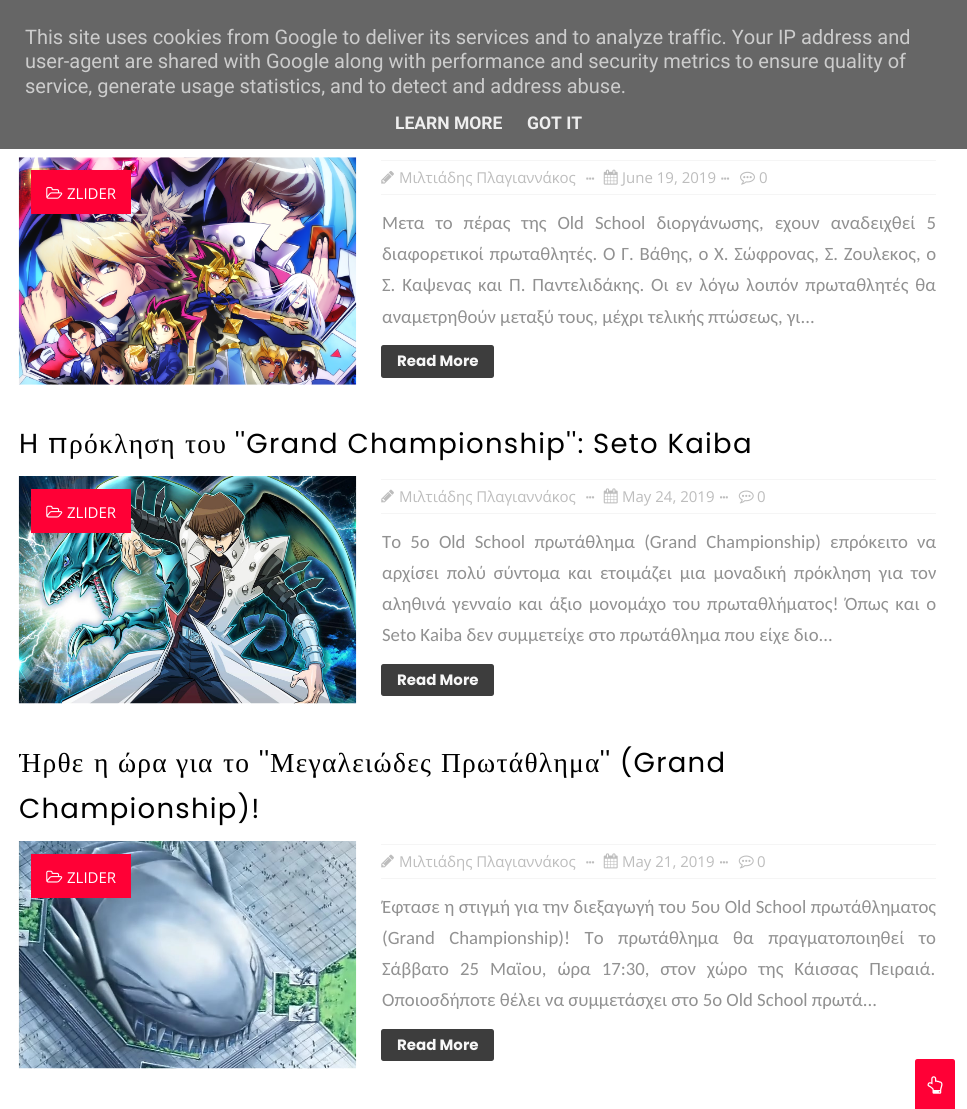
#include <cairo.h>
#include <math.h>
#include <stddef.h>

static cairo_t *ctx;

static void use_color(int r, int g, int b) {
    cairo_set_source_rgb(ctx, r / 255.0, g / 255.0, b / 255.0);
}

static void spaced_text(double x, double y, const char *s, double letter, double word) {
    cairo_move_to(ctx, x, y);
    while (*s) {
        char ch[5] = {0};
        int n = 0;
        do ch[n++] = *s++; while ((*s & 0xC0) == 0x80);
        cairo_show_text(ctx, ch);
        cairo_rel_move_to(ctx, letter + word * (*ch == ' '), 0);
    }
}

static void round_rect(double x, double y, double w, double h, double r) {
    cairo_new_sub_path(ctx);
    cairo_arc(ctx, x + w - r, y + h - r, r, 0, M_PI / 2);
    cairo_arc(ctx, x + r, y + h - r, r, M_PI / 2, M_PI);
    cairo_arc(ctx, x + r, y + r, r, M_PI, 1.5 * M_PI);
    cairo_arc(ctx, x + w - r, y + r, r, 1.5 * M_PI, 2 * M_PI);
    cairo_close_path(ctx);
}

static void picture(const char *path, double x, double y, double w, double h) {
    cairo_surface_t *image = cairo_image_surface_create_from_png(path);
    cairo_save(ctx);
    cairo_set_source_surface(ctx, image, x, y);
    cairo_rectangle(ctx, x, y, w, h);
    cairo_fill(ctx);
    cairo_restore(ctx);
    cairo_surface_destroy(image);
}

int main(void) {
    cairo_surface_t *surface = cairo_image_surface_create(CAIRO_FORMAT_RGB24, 967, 1109);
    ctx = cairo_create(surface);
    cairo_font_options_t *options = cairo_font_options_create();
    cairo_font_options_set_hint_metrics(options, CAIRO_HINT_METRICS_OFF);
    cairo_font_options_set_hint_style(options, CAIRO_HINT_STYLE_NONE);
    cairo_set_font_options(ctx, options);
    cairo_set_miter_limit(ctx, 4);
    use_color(255, 255, 255);
    cairo_paint(ctx);
    use_color(102, 102, 102);
    cairo_rectangle(ctx, 0, 0, 967, 149);
    cairo_fill(ctx);
    cairo_select_font_face(ctx, "Roboto", CAIRO_FONT_SLANT_NORMAL, CAIRO_FONT_WEIGHT_NORMAL);
    cairo_set_font_size(ctx, 20);
    use_color(204, 204, 204);
    cairo_move_to(ctx, 25, 44);
    cairo_show_text(ctx, "This site uses cookies from Google to deliver its services and to analyze traffic. Your IP address and");
    cairo_move_to(ctx, 25, 68);
    cairo_show_text(ctx, "user-agent are shared with Google along with performance and security metrics to ensure quality of");
    cairo_move_to(ctx, 25, 93);
    cairo_show_text(ctx, "service, generate usage statistics, and to detect and address abuse.");
    cairo_select_font_face(ctx, "Roboto", CAIRO_FONT_SLANT_NORMAL, CAIRO_FONT_WEIGHT_BOLD);
    cairo_set_font_size(ctx, 17.5);
    use_color(238, 238, 238);
    cairo_move_to(ctx, 395, 129);
    cairo_show_text(ctx, "LEARN MORE");
    cairo_move_to(ctx, 527, 129);
    cairo_show_text(ctx, "GOT IT");
    picture("img1.png", 18, 157, 339, 228);
    use_color(255, 0, 54);
    cairo_rectangle(ctx, 31, 170, 100, 44);
    cairo_fill(ctx);
    picture("img2.png", 46, 186, 17, 13);
    cairo_select_font_face(ctx, "Open Sans", CAIRO_FONT_SLANT_NORMAL, CAIRO_FONT_WEIGHT_NORMAL);
    cairo_set_font_size(ctx, 15);
    use_color(255, 255, 255);
    cairo_move_to(ctx, 67, 199);
    cairo_show_text(ctx, "ZLIDER");
    use_color(245, 245, 245);
    cairo_rectangle(ctx, 381, 160, 555, 1);
    cairo_fill(ctx);
    cairo_rectangle(ctx, 381, 194, 555, 1);
    cairo_fill(ctx);
    picture("img3.png", 381, 171, 13, 13);
    use_color(189, 189, 189);
    cairo_move_to(ctx, 399, 183);
    cairo_show_text(ctx, "Μιλτιάδης Πλαγιαννάκος");
    picture("img4.png", 586, 177, 9, 3);
    picture("img5.png", 603, 169, 15, 16);
    cairo_move_to(ctx, 622, 183);
    cairo_show_text(ctx, "June 19, 2019");
    picture("img4.png", 721, 177, 9, 3);
    picture("img6.png", 740, 171, 15, 14);
    cairo_move_to(ctx, 759, 183);
    cairo_show_text(ctx, "0");
    cairo_select_font_face(ctx, "Carlito", CAIRO_FONT_SLANT_NORMAL, CAIRO_FONT_WEIGHT_NORMAL);
    cairo_set_font_size(ctx, 18.75);
    use_color(145, 145, 145);
    spaced_text(382, 229, "Μετα το πέρας της Old School διοργάνωσης, εχουν αναδειχθεί 5", 0, 6.75);
    spaced_text(382, 260, "διαφορετικοί πρωταθλητές. Ο Γ. Βάθης, ο Χ. Σώφρονας, Σ. Ζουλεκος, ο", 0, 1.5);
    spaced_text(382, 291, "Σ. Καψενας και Π. Παντελιδάκης. Οι εν λόγω λοιπόν πρωταθλητές θα", 0, 2.6);
    cairo_move_to(ctx, 382, 323);
    cairo_show_text(ctx, "αναμετρηθούν μεταξύ τους, μέχρι τελικής πτώσεως, γι...");
    use_color(61, 61, 61);
    round_rect(381, 345, 113, 33, 2.5);
    cairo_fill(ctx);
    cairo_select_font_face(ctx, "Poppins", CAIRO_FONT_SLANT_NORMAL, CAIRO_FONT_WEIGHT_BOLD);
    cairo_set_font_size(ctx, 15);
    use_color(247, 247, 247);
    cairo_move_to(ctx, 397, 366);
    cairo_show_text(ctx, "Read More");
    cairo_select_font_face(ctx, "Poppins", CAIRO_FONT_SLANT_NORMAL, CAIRO_FONT_WEIGHT_NORMAL);
    cairo_set_font_size(ctx, 27.5);
    use_color(0, 0, 0);
    spaced_text(19, 453, "H π", 1.25, 0);
    cairo_select_font_face(ctx, "Liberation Serif", CAIRO_FONT_SLANT_NORMAL, CAIRO_FONT_WEIGHT_NORMAL);
    spaced_text(69, 453, "ρόκληση", 1.25, 0);
    spaced_text(185, 453, "του", 1.25, 0);
    cairo_select_font_face(ctx, "Poppins", CAIRO_FONT_SLANT_NORMAL, CAIRO_FONT_WEIGHT_NORMAL);
    spaced_text(235, 453, "''Grand Championship'': Seto Kaiba", 1.25, 0);
    picture("img7.png", 18, 476, 339, 228);
    use_color(255, 0, 54);
    cairo_rectangle(ctx, 31, 489, 100, 44);
    cairo_fill(ctx);
    picture("img8.png", 46, 505, 17, 13);
    cairo_select_font_face(ctx, "Open Sans", CAIRO_FONT_SLANT_NORMAL, CAIRO_FONT_WEIGHT_NORMAL);
    cairo_set_font_size(ctx, 15);
    use_color(255, 255, 255);
    cairo_move_to(ctx, 67, 518);
    cairo_show_text(ctx, "ZLIDER");
    use_color(245, 245, 245);
    cairo_rectangle(ctx, 381, 479, 555, 1);
    cairo_fill(ctx);
    cairo_rectangle(ctx, 381, 513, 555, 1);
    cairo_fill(ctx);
    picture("img9.png", 381, 489, 13, 14);
    use_color(189, 189, 189);
    cairo_move_to(ctx, 399, 502);
    cairo_show_text(ctx, "Μιλτιάδης Πλαγιαννάκος");
    picture("img10.png", 586, 496, 9, 3);
    picture("img11.png", 603, 488, 15, 16);
    cairo_move_to(ctx, 622, 502);
    cairo_show_text(ctx, "May 24, 2019");
    picture("img12.png", 720, 496, 8, 3);
    picture("img13.png", 738, 490, 16, 14);
    cairo_move_to(ctx, 757, 502);
    cairo_show_text(ctx, "0");
    cairo_select_font_face(ctx, "Carlito", CAIRO_FONT_SLANT_NORMAL, CAIRO_FONT_WEIGHT_NORMAL);
    cairo_set_font_size(ctx, 18.75);
    use_color(145, 145, 145);
    spaced_text(382, 548, "Tο 5ο Old School πρωτάθλημα (Grand Championship) επρόκειτο να", 0, 5);
    spaced_text(382, 579, "αρχίσει πολύ σύντομα και ετοιμάζει μια μοναδική πρόκληση για τον", 0, 3.5);
    spaced_text(382, 610, "αληθινά γενναίο και άξιο μονομάχο του πρωταθλήματος!", 0, 2.5);
    spaced_text(845, 610, "Όπως και ο", 0, 2.5);
    cairo_move_to(ctx, 382, 641);
    cairo_show_text(ctx, "Seto Kaiba δεν συμμετείχε στο πρωτάθλημα που είχε διο...");
    use_color(61, 61, 61);
    round_rect(381, 664, 113, 32, 2.5);
    cairo_fill(ctx);
    cairo_select_font_face(ctx, "Poppins", CAIRO_FONT_SLANT_NORMAL, CAIRO_FONT_WEIGHT_BOLD);
    cairo_set_font_size(ctx, 15);
    use_color(247, 247, 247);
    cairo_move_to(ctx, 397, 685);
    cairo_show_text(ctx, "Read More");
    cairo_save(ctx);
    cairo_rectangle(ctx, 19, 729, 930, 340);
    cairo_clip(ctx);
    cairo_select_font_face(ctx, "Liberation Serif", CAIRO_FONT_SLANT_NORMAL, CAIRO_FONT_WEIGHT_NORMAL);
    cairo_set_font_size(ctx, 27.5);
    use_color(0, 0, 0);
    spaced_text(19, 772, "Ήρθε", 1.25, 0);
    cairo_restore(ctx);
    cairo_select_font_face(ctx, "Liberation Serif", CAIRO_FONT_SLANT_NORMAL, CAIRO_FONT_WEIGHT_NORMAL);
    cairo_set_font_size(ctx, 27.5);
    use_color(0, 0, 0);
    spaced_text(94, 772, "η", 1.25, 0);
    spaced_text(118, 772, "ώρα", 1.25, 0);
    spaced_text(176, 772, "για", 1.25, 0);
    spaced_text(223, 772, "το", 1.25, 0);
    cairo_select_font_face(ctx, "Poppins", CAIRO_FONT_SLANT_NORMAL, CAIRO_FONT_WEIGHT_NORMAL);
    spaced_text(259, 772, "''", 1.25, 0);
    cairo_select_font_face(ctx, "Liberation Serif", CAIRO_FONT_SLANT_NORMAL, CAIRO_FONT_WEIGHT_NORMAL);
    spaced_text(270, 772, "Μεγαλειώδες", 1.25, 0);
    spaced_text(441, 772, "Πρωτάθλημα", 1.25, 0);
    cairo_select_font_face(ctx, "Poppins", CAIRO_FONT_SLANT_NORMAL, CAIRO_FONT_WEIGHT_NORMAL);
    spaced_text(600, 772, "'' (Grand", 1.25, 0);
    spaced_text(19, 818, "Championship)!", 1.25, 0);
    picture("img14.png", 18, 841, 339, 228);
    use_color(255, 0, 54);
    cairo_rectangle(ctx, 31, 854, 100, 44);
    cairo_fill(ctx);
    picture("img8.png", 46, 870, 17, 13);
    cairo_select_font_face(ctx, "Open Sans", CAIRO_FONT_SLANT_NORMAL, CAIRO_FONT_WEIGHT_NORMAL);
    cairo_set_font_size(ctx, 15);
    use_color(255, 255, 255);
    cairo_move_to(ctx, 67, 883);
    cairo_show_text(ctx, "ZLIDER");
    use_color(245, 245, 245);
    cairo_rectangle(ctx, 381, 844, 555, 1);
    cairo_fill(ctx);
    cairo_rectangle(ctx, 381, 878, 555, 1);
    cairo_fill(ctx);
    picture("img9.png", 381, 854, 13, 14);
    use_color(189, 189, 189);
    cairo_move_to(ctx, 399, 867);
    cairo_show_text(ctx, "Μιλτιάδης Πλαγιαννάκος");
    picture("img10.png", 586, 861, 9, 3);
    picture("img11.png", 603, 853, 15, 16);
    cairo_move_to(ctx, 622, 867);
    cairo_show_text(ctx, "May 21, 2019");
    picture("img12.png", 720, 861, 8, 3);
    picture("img13.png", 738, 855, 16, 14);
    cairo_move_to(ctx, 757, 867);
    cairo_show_text(ctx, "0");
    cairo_select_font_face(ctx, "Carlito", CAIRO_FONT_SLANT_NORMAL, CAIRO_FONT_WEIGHT_NORMAL);
    cairo_set_font_size(ctx, 18.75);
    use_color(145, 145, 145);
    spaced_text(382, 913, "Έφτασε η στιγμή για την διεξαγωγή του 5ου Old School πρωτάθληματος", 0, 0.25);
    spaced_text(382, 944, "(Grand Championship)! Το πρωτάθλημα θα πραγματοποιηθεί το", 0, 10.25);
    spaced_text(382, 975, "Σάββατο 25 Μαϊου, ώρα 17:30, στον χώρο της Κάισσας Πειραιά.", 0, 6.75);
    cairo_move_to(ctx, 382, 1006);
    cairo_show_text(ctx, "Οποιοσδήποτε θέλει να συμμετάσχει στο 5ο Old School πρωτά...");
    use_color(61, 61, 61);
    round_rect(381, 1029, 113, 32, 2.5);
    cairo_fill(ctx);
    cairo_select_font_face(ctx, "Poppins", CAIRO_FONT_SLANT_NORMAL, CAIRO_FONT_WEIGHT_BOLD);
    cairo_set_font_size(ctx, 15);
    use_color(247, 247, 247);
    cairo_move_to(ctx, 397, 1050);
    cairo_show_text(ctx, "Read More");
    use_color(255, 0, 54);
    cairo_new_path(ctx);
    cairo_move_to(ctx, 917.5, 1059);
    cairo_line_to(ctx, 952.5, 1059);
    cairo_curve_to(ctx, 954, 1059, 955, 1060, 955, 1061.5);
    cairo_line_to(ctx, 955, 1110);
    cairo_line_to(ctx, 915, 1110);
    cairo_line_to(ctx, 915, 1061.5);
    cairo_curve_to(ctx, 915, 1060, 916, 1059, 917.5, 1059);
    cairo_close_path(ctx);
    cairo_fill(ctx);
    picture("img15.png", 927, 1076, 16, 18);
    cairo_surface_write_to_png(surface, "result.png");
    cairo_font_options_destroy(options);
    cairo_destroy(ctx);
    cairo_surface_destroy(surface);
    return 0;
}
